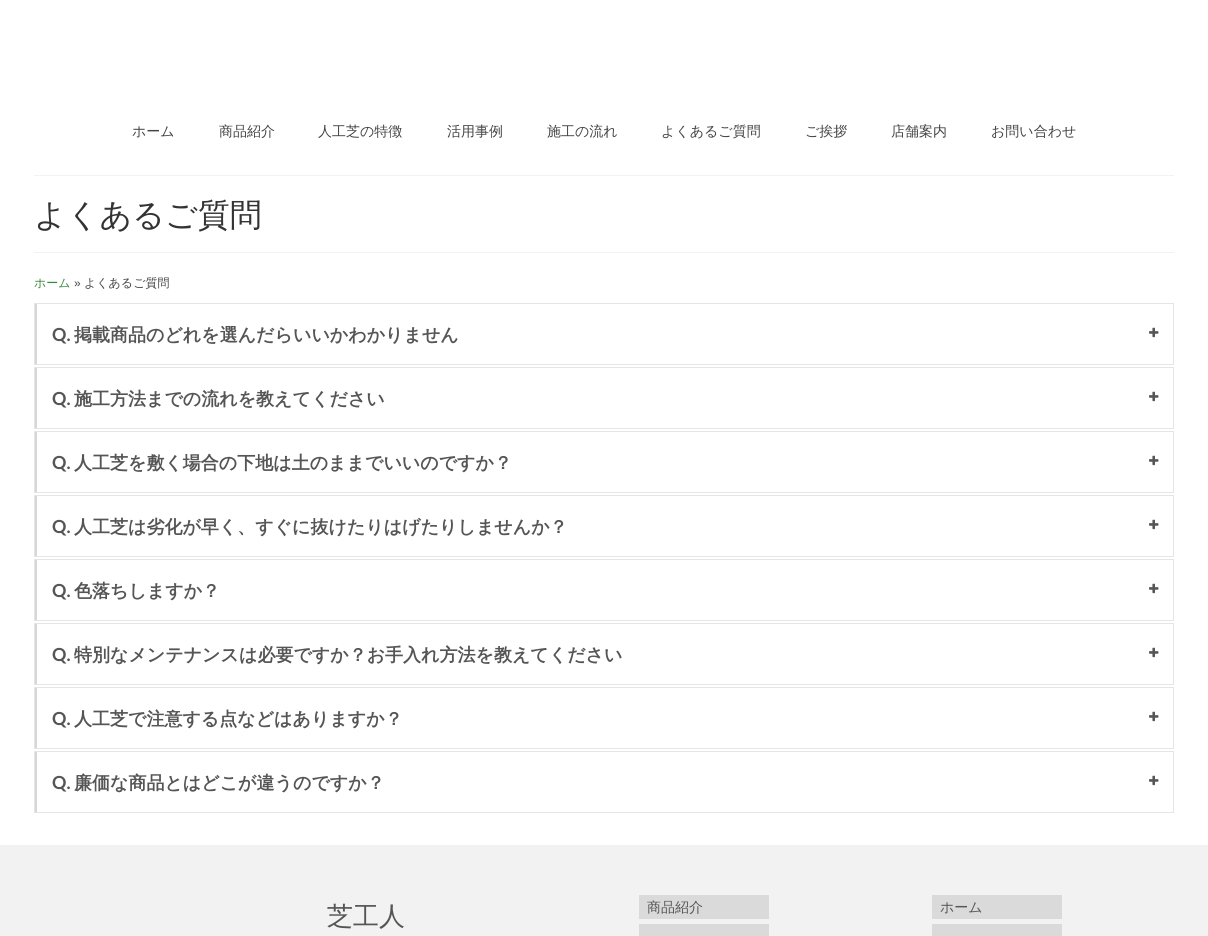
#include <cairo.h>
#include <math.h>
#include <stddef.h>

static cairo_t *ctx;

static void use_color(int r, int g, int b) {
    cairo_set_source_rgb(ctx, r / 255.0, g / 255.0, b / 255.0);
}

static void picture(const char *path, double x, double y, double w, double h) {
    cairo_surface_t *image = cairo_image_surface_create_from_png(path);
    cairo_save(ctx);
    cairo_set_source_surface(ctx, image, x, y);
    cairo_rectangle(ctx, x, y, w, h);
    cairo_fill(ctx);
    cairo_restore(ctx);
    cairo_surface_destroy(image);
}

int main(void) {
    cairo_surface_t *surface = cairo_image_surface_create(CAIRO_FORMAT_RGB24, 1208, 936);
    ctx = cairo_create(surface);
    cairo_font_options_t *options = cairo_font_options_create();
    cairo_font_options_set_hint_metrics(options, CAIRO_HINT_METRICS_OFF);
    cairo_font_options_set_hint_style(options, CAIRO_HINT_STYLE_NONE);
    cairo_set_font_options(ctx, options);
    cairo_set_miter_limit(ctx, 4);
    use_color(255, 255, 255);
    cairo_paint(ctx);
    cairo_select_font_face(ctx, "WenQuanYi Zen Hei Medium", CAIRO_FONT_SLANT_NORMAL, CAIRO_FONT_WEIGHT_NORMAL);
    cairo_set_font_size(ctx, 14);
    use_color(68, 68, 68);
    cairo_move_to(ctx, 132, 136);
    cairo_show_text(ctx, "ホーム");
    cairo_move_to(ctx, 219, 136);
    cairo_show_text(ctx, "商品紹介");
    cairo_move_to(ctx, 318, 136);
    cairo_show_text(ctx, "人工芝の特徴");
    cairo_move_to(ctx, 447, 136);
    cairo_show_text(ctx, "活用事例");
    cairo_move_to(ctx, 547, 136);
    cairo_show_text(ctx, "施工の流れ");
    cairo_move_to(ctx, 661, 136);
    cairo_show_text(ctx, "よくあるご質問");
    cairo_move_to(ctx, 805, 136);
    cairo_show_text(ctx, "ご挨拶");
    cairo_move_to(ctx, 891, 136);
    cairo_show_text(ctx, "店舗案内");
    cairo_move_to(ctx, 991, 136);
    cairo_show_text(ctx, "お問い合わせ");
    use_color(242, 242, 242);
    cairo_rectangle(ctx, 34, 175, 1140, 1);
    cairo_fill(ctx);
    cairo_rectangle(ctx, 34, 252, 1140, 1);
    cairo_fill(ctx);
    cairo_set_font_size(ctx, 32);
    use_color(51, 51, 51);
    cairo_move_to(ctx, 34, 226);
    cairo_show_text(ctx, "よくあるご質問");
    cairo_set_font_size(ctx, 12);
    use_color(54, 136, 61);
    cairo_move_to(ctx, 34, 287);
    cairo_show_text(ctx, "ホーム");
    cairo_select_font_face(ctx, "Liberation Sans", CAIRO_FONT_SLANT_NORMAL, CAIRO_FONT_WEIGHT_NORMAL);
    use_color(68, 68, 68);
    cairo_move_to(ctx, 74, 287);
    cairo_show_text(ctx, "»");
    cairo_select_font_face(ctx, "WenQuanYi Zen Hei Medium", CAIRO_FONT_SLANT_NORMAL, CAIRO_FONT_WEIGHT_NORMAL);
    cairo_move_to(ctx, 84, 287);
    cairo_show_text(ctx, "よくあるご質問");
    cairo_rectangle(ctx, 34.5, 303.5, 1139, 61);
    use_color(229, 229, 229);
    cairo_set_line_width(ctx, 1);
    cairo_stroke(ctx);
    use_color(214, 214, 214);
    cairo_rectangle(ctx, 35, 304, 2, 60);
    cairo_fill(ctx);
    cairo_select_font_face(ctx, "Lato", CAIRO_FONT_SLANT_NORMAL, CAIRO_FONT_WEIGHT_BOLD);
    cairo_set_font_size(ctx, 18);
    use_color(85, 85, 85);
    cairo_move_to(ctx, 52, 341);
    cairo_show_text(ctx, "Q.");
    cairo_select_font_face(ctx, "WenQuanYi Zen Hei", CAIRO_FONT_SLANT_NORMAL, CAIRO_FONT_WEIGHT_BOLD);
    cairo_move_to(ctx, 74, 341);
    cairo_show_text(ctx, "掲載商品のどれを選んだらいいかわかりません");
    picture("img1.png", 1149, 327, 10, 11);
    cairo_rectangle(ctx, 34.5, 367.5, 1139, 61);
    use_color(229, 229, 229);
    cairo_stroke(ctx);
    use_color(214, 214, 214);
    cairo_rectangle(ctx, 35, 368, 2, 60);
    cairo_fill(ctx);
    cairo_select_font_face(ctx, "Lato", CAIRO_FONT_SLANT_NORMAL, CAIRO_FONT_WEIGHT_BOLD);
    use_color(85, 85, 85);
    cairo_move_to(ctx, 52, 405);
    cairo_show_text(ctx, "Q.");
    cairo_select_font_face(ctx, "WenQuanYi Zen Hei", CAIRO_FONT_SLANT_NORMAL, CAIRO_FONT_WEIGHT_BOLD);
    cairo_move_to(ctx, 74, 405);
    cairo_show_text(ctx, "施工方法までの流れを教えてください");
    picture("img1.png", 1149, 391, 10, 11);
    cairo_rectangle(ctx, 34.5, 431.5, 1139, 61);
    use_color(229, 229, 229);
    cairo_stroke(ctx);
    use_color(214, 214, 214);
    cairo_rectangle(ctx, 35, 432, 2, 60);
    cairo_fill(ctx);
    cairo_select_font_face(ctx, "Lato", CAIRO_FONT_SLANT_NORMAL, CAIRO_FONT_WEIGHT_BOLD);
    use_color(85, 85, 85);
    cairo_move_to(ctx, 52, 469);
    cairo_show_text(ctx, "Q.");
    cairo_select_font_face(ctx, "WenQuanYi Zen Hei", CAIRO_FONT_SLANT_NORMAL, CAIRO_FONT_WEIGHT_BOLD);
    cairo_move_to(ctx, 74, 469);
    cairo_show_text(ctx, "人工芝を敷く場合の下地は土のままでいいのですか？");
    picture("img1.png", 1149, 455, 10, 11);
    cairo_rectangle(ctx, 34.5, 495.5, 1139, 61);
    use_color(229, 229, 229);
    cairo_stroke(ctx);
    use_color(214, 214, 214);
    cairo_rectangle(ctx, 35, 496, 2, 60);
    cairo_fill(ctx);
    cairo_select_font_face(ctx, "Lato", CAIRO_FONT_SLANT_NORMAL, CAIRO_FONT_WEIGHT_BOLD);
    use_color(85, 85, 85);
    cairo_move_to(ctx, 52, 533);
    cairo_show_text(ctx, "Q.");
    cairo_select_font_face(ctx, "WenQuanYi Zen Hei", CAIRO_FONT_SLANT_NORMAL, CAIRO_FONT_WEIGHT_BOLD);
    cairo_move_to(ctx, 74, 533);
    cairo_show_text(ctx, "人工芝は劣化が早く、すぐに抜けたりはげたりしませんか？");
    picture("img1.png", 1149, 519, 10, 11);
    cairo_rectangle(ctx, 34.5, 559.5, 1139, 61);
    use_color(229, 229, 229);
    cairo_stroke(ctx);
    use_color(214, 214, 214);
    cairo_rectangle(ctx, 35, 560, 2, 60);
    cairo_fill(ctx);
    cairo_select_font_face(ctx, "Lato", CAIRO_FONT_SLANT_NORMAL, CAIRO_FONT_WEIGHT_BOLD);
    use_color(85, 85, 85);
    cairo_move_to(ctx, 52, 597);
    cairo_show_text(ctx, "Q.");
    cairo_select_font_face(ctx, "WenQuanYi Zen Hei", CAIRO_FONT_SLANT_NORMAL, CAIRO_FONT_WEIGHT_BOLD);
    cairo_move_to(ctx, 74, 597);
    cairo_show_text(ctx, "色落ちしますか？");
    picture("img1.png", 1149, 583, 10, 11);
    cairo_rectangle(ctx, 34.5, 623.5, 1139, 61);
    use_color(229, 229, 229);
    cairo_stroke(ctx);
    use_color(214, 214, 214);
    cairo_rectangle(ctx, 35, 624, 2, 60);
    cairo_fill(ctx);
    cairo_select_font_face(ctx, "Lato", CAIRO_FONT_SLANT_NORMAL, CAIRO_FONT_WEIGHT_BOLD);
    use_color(85, 85, 85);
    cairo_move_to(ctx, 52, 661);
    cairo_show_text(ctx, "Q.");
    cairo_select_font_face(ctx, "WenQuanYi Zen Hei", CAIRO_FONT_SLANT_NORMAL, CAIRO_FONT_WEIGHT_BOLD);
    cairo_move_to(ctx, 74, 661);
    cairo_show_text(ctx, "特別なメンテナンスは必要ですか？お手入れ方法を教えてください");
    picture("img1.png", 1149, 647, 10, 11);
    cairo_rectangle(ctx, 34.5, 687.5, 1139, 61);
    use_color(229, 229, 229);
    cairo_stroke(ctx);
    use_color(214, 214, 214);
    cairo_rectangle(ctx, 35, 688, 2, 60);
    cairo_fill(ctx);
    cairo_select_font_face(ctx, "Lato", CAIRO_FONT_SLANT_NORMAL, CAIRO_FONT_WEIGHT_BOLD);
    use_color(85, 85, 85);
    cairo_move_to(ctx, 52, 725);
    cairo_show_text(ctx, "Q.");
    cairo_select_font_face(ctx, "WenQuanYi Zen Hei", CAIRO_FONT_SLANT_NORMAL, CAIRO_FONT_WEIGHT_BOLD);
    cairo_move_to(ctx, 74, 725);
    cairo_show_text(ctx, "人工芝で注意する点などはありますか？");
    picture("img1.png", 1149, 711, 10, 11);
    cairo_rectangle(ctx, 34.5, 751.5, 1139, 61);
    use_color(229, 229, 229);
    cairo_stroke(ctx);
    use_color(214, 214, 214);
    cairo_rectangle(ctx, 35, 752, 2, 60);
    cairo_fill(ctx);
    cairo_select_font_face(ctx, "Lato", CAIRO_FONT_SLANT_NORMAL, CAIRO_FONT_WEIGHT_BOLD);
    use_color(85, 85, 85);
    cairo_move_to(ctx, 52, 789);
    cairo_show_text(ctx, "Q.");
    cairo_select_font_face(ctx, "WenQuanYi Zen Hei", CAIRO_FONT_SLANT_NORMAL, CAIRO_FONT_WEIGHT_BOLD);
    cairo_move_to(ctx, 74, 789);
    cairo_show_text(ctx, "廉価な商品とはどこが違うのですか？");
    picture("img1.png", 1149, 775, 10, 11);
    use_color(242, 242, 242);
    cairo_rectangle(ctx, 0, 845, 1208, 91);
    cairo_fill(ctx);
    cairo_select_font_face(ctx, "WenQuanYi Zen Hei Medium", CAIRO_FONT_SLANT_NORMAL, CAIRO_FONT_WEIGHT_NORMAL);
    cairo_set_font_size(ctx, 26);
    use_color(85, 85, 85);
    cairo_move_to(ctx, 327, 925);
    cairo_show_text(ctx, "芝工人");
    use_color(218, 218, 218);
    cairo_rectangle(ctx, 639, 895, 130, 24);
    cairo_fill(ctx);
    cairo_set_font_size(ctx, 14);
    use_color(85, 85, 85);
    cairo_move_to(ctx, 647, 912);
    cairo_show_text(ctx, "商品紹介");
    use_color(218, 218, 218);
    cairo_rectangle(ctx, 639, 924, 130, 12);
    cairo_fill(ctx);
    cairo_rectangle(ctx, 932, 895, 130, 24);
    cairo_fill(ctx);
    use_color(85, 85, 85);
    cairo_move_to(ctx, 940, 912);
    cairo_show_text(ctx, "ホーム");
    use_color(218, 218, 218);
    cairo_rectangle(ctx, 932, 924, 130, 12);
    cairo_fill(ctx);
    cairo_surface_write_to_png(surface, "result.png");
    cairo_font_options_destroy(options);
    cairo_destroy(ctx);
    cairo_surface_destroy(surface);
    return 0;
}
